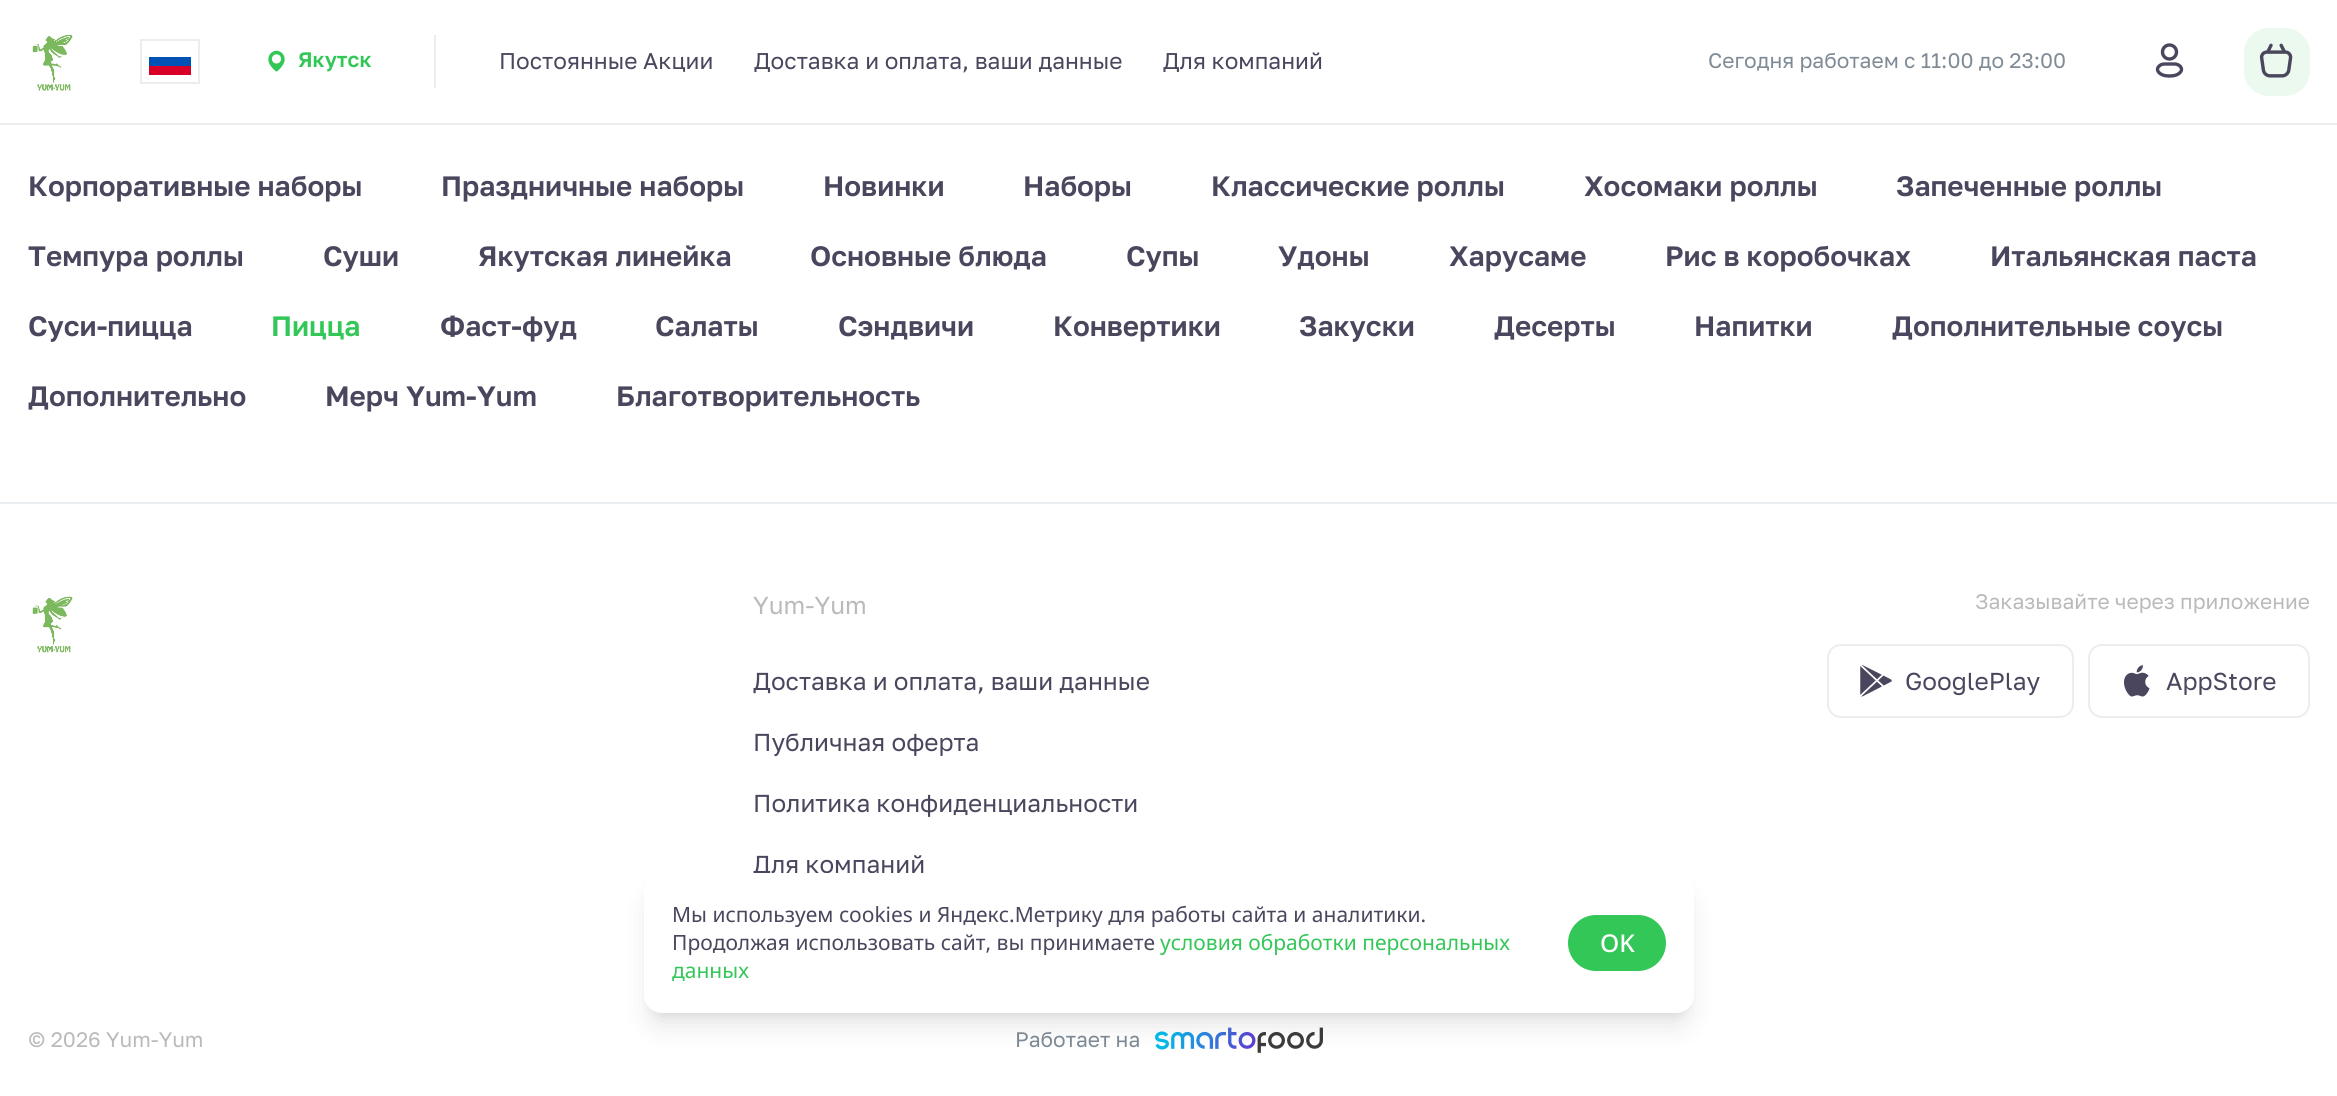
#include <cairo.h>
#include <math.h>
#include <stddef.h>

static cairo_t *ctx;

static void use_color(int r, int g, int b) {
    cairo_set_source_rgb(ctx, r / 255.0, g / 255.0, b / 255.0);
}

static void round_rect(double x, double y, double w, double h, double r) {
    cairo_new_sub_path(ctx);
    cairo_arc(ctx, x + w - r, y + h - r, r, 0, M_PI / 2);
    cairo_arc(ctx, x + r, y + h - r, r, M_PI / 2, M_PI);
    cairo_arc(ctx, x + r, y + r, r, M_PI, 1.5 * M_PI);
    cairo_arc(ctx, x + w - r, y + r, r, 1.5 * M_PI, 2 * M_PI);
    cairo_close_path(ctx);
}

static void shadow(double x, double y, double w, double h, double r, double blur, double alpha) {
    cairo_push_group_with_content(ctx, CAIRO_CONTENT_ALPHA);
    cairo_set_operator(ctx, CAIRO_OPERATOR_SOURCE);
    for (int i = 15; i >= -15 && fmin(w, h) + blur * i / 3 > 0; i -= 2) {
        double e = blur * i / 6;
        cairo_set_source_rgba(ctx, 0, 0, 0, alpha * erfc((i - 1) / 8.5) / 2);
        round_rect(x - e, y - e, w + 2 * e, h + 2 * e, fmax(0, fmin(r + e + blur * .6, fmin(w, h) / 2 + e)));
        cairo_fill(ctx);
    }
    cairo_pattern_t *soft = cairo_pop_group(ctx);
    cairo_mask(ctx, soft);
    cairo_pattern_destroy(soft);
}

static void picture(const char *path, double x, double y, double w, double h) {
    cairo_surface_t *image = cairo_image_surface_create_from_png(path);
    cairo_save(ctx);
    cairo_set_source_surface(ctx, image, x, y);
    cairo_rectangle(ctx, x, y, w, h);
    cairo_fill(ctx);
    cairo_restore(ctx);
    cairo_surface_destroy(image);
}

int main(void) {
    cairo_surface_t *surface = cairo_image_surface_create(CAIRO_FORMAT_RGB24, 2337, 1096);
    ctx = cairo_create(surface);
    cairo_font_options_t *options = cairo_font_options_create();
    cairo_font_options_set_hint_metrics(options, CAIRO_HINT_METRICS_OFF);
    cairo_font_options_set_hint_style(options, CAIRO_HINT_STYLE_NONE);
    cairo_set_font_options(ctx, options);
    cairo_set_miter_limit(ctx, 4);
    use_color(255, 255, 255);
    cairo_paint(ctx);
    use_color(235, 238, 240);
    cairo_rectangle(ctx, 0, 123, 2337, 2);
    cairo_fill(ctx);
    picture("img1.png", 32, 34, 41, 57);
    cairo_rectangle(ctx, 141, 40, 58, 43);
    cairo_stroke(ctx);
    use_color(0, 82, 180);
    cairo_rectangle(ctx, 149, 57, 42, 9);
    cairo_fill(ctx);
    use_color(216, 0, 39);
    cairo_rectangle(ctx, 149, 66, 42, 9);
    cairo_fill(ctx);
    picture("img2.png", 268, 50, 17, 22);
    cairo_select_font_face(ctx, "Golos Text SemiBold", CAIRO_FONT_SLANT_NORMAL, CAIRO_FONT_WEIGHT_NORMAL);
    cairo_set_font_size(ctx, 21);
    use_color(51, 199, 88);
    cairo_move_to(ctx, 298, 67);
    cairo_show_text(ctx, "Якутск");
    use_color(235, 238, 240);
    cairo_rectangle(ctx, 434, 35, 2, 53);
    cairo_fill(ctx);
    cairo_select_font_face(ctx, "Golos Text", CAIRO_FONT_SLANT_NORMAL, CAIRO_FONT_WEIGHT_NORMAL);
    cairo_set_font_size(ctx, 22.75);
    use_color(74, 70, 93);
    cairo_move_to(ctx, 499, 69);
    cairo_show_text(ctx, "Постоянные Акции");
    cairo_move_to(ctx, 754, 69);
    cairo_show_text(ctx, "Доставка и оплата, ваши данные");
    cairo_move_to(ctx, 1163, 69);
    cairo_show_text(ctx, "Для компаний");
    cairo_set_font_size(ctx, 21);
    use_color(126, 138, 149);
    cairo_move_to(ctx, 1708, 68);
    cairo_show_text(ctx, "Сегодня работаем с 11:00 до 23:00");
    cairo_new_path(ctx);
    cairo_arc(ctx, 2169.5, 52, 7, 0, 2 * M_PI);
    use_color(74, 70, 93);
    cairo_set_line_width(ctx, 3.4);
    cairo_stroke(ctx);
    cairo_new_path(ctx);
    cairo_move_to(ctx, 2174.5, 64);
    cairo_line_to(ctx, 2164.5, 64);
    cairo_curve_to(ctx, 2159.5, 64, 2155.5, 68.5, 2158.5, 72);
    cairo_curve_to(ctx, 2160.5, 74.5, 2164, 76, 2169.5, 76);
    cairo_curve_to(ctx, 2175, 76, 2178.5, 74.5, 2180.5, 72);
    cairo_curve_to(ctx, 2183.5, 68.5, 2179.5, 64, 2174.5, 64);
    cairo_close_path(ctx);
    cairo_stroke(ctx);
    use_color(235, 249, 238);
    round_rect(2244, 28, 66, 68, 25);
    cairo_fill(ctx);
    picture("img3.png", 2259, 43, 34, 35);
    cairo_select_font_face(ctx, "Golos Text SemiBold", CAIRO_FONT_SLANT_NORMAL, CAIRO_FONT_WEIGHT_NORMAL);
    cairo_set_font_size(ctx, 28);
    use_color(74, 70, 93);
    cairo_move_to(ctx, 28, 196);
    cairo_show_text(ctx, "Корпоративные наборы");
    cairo_move_to(ctx, 441, 196);
    cairo_show_text(ctx, "Праздничные наборы");
    cairo_move_to(ctx, 823, 196);
    cairo_show_text(ctx, "Новинки");
    cairo_move_to(ctx, 1023, 196);
    cairo_show_text(ctx, "Наборы");
    cairo_move_to(ctx, 1211, 196);
    cairo_show_text(ctx, "Классические роллы");
    cairo_move_to(ctx, 1584, 196);
    cairo_show_text(ctx, "Хосомаки роллы");
    cairo_move_to(ctx, 1896, 196);
    cairo_show_text(ctx, "Запеченные роллы");
    cairo_move_to(ctx, 28, 266);
    cairo_show_text(ctx, "Темпура роллы");
    cairo_move_to(ctx, 323, 266);
    cairo_show_text(ctx, "Суши");
    cairo_move_to(ctx, 478, 266);
    cairo_show_text(ctx, "Якутская линейка");
    cairo_move_to(ctx, 810, 266);
    cairo_show_text(ctx, "Основные блюда");
    cairo_move_to(ctx, 1126, 266);
    cairo_show_text(ctx, "Супы");
    cairo_move_to(ctx, 1278, 266);
    cairo_show_text(ctx, "Удоны");
    cairo_move_to(ctx, 1449, 266);
    cairo_show_text(ctx, "Харусаме");
    cairo_move_to(ctx, 1665, 266);
    cairo_show_text(ctx, "Рис в коробочках");
    cairo_move_to(ctx, 1990, 266);
    cairo_show_text(ctx, "Итальянская паста");
    cairo_move_to(ctx, 28, 336);
    cairo_show_text(ctx, "Суси-пицца");
    use_color(51, 199, 88);
    cairo_move_to(ctx, 271, 336);
    cairo_show_text(ctx, "Пицца");
    use_color(74, 70, 93);
    cairo_move_to(ctx, 440, 336);
    cairo_show_text(ctx, "Фаст-фуд");
    cairo_move_to(ctx, 655, 336);
    cairo_show_text(ctx, "Салаты");
    cairo_move_to(ctx, 838, 336);
    cairo_show_text(ctx, "Сэндвичи");
    cairo_move_to(ctx, 1053, 336);
    cairo_show_text(ctx, "Конвертики");
    cairo_move_to(ctx, 1299, 336);
    cairo_show_text(ctx, "Закуски");
    cairo_move_to(ctx, 1494, 336);
    cairo_show_text(ctx, "Десерты");
    cairo_move_to(ctx, 1694, 336);
    cairo_show_text(ctx, "Напитки");
    cairo_move_to(ctx, 1892, 336);
    cairo_show_text(ctx, "Дополнительные соусы");
    cairo_move_to(ctx, 28, 406);
    cairo_show_text(ctx, "Дополнительно");
    cairo_move_to(ctx, 325, 406);
    cairo_show_text(ctx, "Мерч Yum-Yum");
    cairo_move_to(ctx, 616, 406);
    cairo_show_text(ctx, "Благотворительность");
    use_color(235, 238, 240);
    cairo_rectangle(ctx, 0, 502, 2337, 2);
    cairo_fill(ctx);
    picture("img4.png", 32, 596, 41, 57);
    cairo_select_font_face(ctx, "Golos Text", CAIRO_FONT_SLANT_NORMAL, CAIRO_FONT_WEIGHT_NORMAL);
    cairo_set_font_size(ctx, 24.5);
    use_color(186, 186, 186);
    cairo_move_to(ctx, 753, 614);
    cairo_show_text(ctx, "Yum-Yum");
    use_color(74, 70, 93);
    cairo_move_to(ctx, 753, 690);
    cairo_show_text(ctx, "Доставка и оплата, ваши данные");
    cairo_move_to(ctx, 753, 751);
    cairo_show_text(ctx, "Публичная оферта");
    cairo_move_to(ctx, 753, 812);
    cairo_show_text(ctx, "Политика конфиденциальности");
    cairo_move_to(ctx, 753, 873);
    cairo_show_text(ctx, "Для компаний");
    cairo_set_font_size(ctx, 21);
    use_color(186, 186, 186);
    cairo_move_to(ctx, 1975, 609);
    cairo_show_text(ctx, "Заказывайте через приложение");
    round_rect(1828, 645, 245, 72, 13);
    use_color(235, 238, 240);
    cairo_set_line_width(ctx, 2);
    cairo_stroke(ctx);
    picture("img5.png", 1860, 665, 32, 32);
    cairo_set_font_size(ctx, 24.5);
    use_color(74, 70, 93);
    cairo_move_to(ctx, 1905, 690);
    cairo_show_text(ctx, "GooglePlay");
    round_rect(2089, 645, 220, 72, 13);
    use_color(235, 238, 240);
    cairo_stroke(ctx);
    picture("img6.png", 2123, 665, 27, 32);
    use_color(74, 70, 93);
    cairo_move_to(ctx, 2166, 690);
    cairo_show_text(ctx, "AppStore");
    cairo_set_font_size(ctx, 21);
    use_color(186, 186, 186);
    cairo_move_to(ctx, 28, 1047);
    cairo_show_text(ctx, "© 2026 Yum-Yum");
    use_color(126, 138, 149);
    cairo_move_to(ctx, 1015, 1047);
    cairo_show_text(ctx, "Работает на");
    picture("img7.png", 1155, 1027, 168, 26);
    use_color(0, 0, 0);
    shadow(651, 887, 1036, 126, 11, 5, 0.1);
    shadow(649, 896, 1040, 130, 12, 13, 0.1);
    use_color(255, 255, 255);
    round_rect(644, 873, 1050, 140, 18);
    cairo_fill(ctx);
    cairo_select_font_face(ctx, "Noto Sans", CAIRO_FONT_SLANT_NORMAL, CAIRO_FONT_WEIGHT_NORMAL);
    use_color(74, 70, 93);
    cairo_move_to(ctx, 672, 922);
    cairo_show_text(ctx, "Мы используем cookies и Яндекс.Метрику для работы сайта и аналитики.");
    cairo_move_to(ctx, 672, 950);
    cairo_show_text(ctx, "Продолжая использовать сайт, вы принимаете");
    use_color(51, 199, 88);
    cairo_move_to(ctx, 1160, 950);
    cairo_show_text(ctx, "условия обработки персональных");
    cairo_move_to(ctx, 672, 978);
    cairo_show_text(ctx, "данных");
    round_rect(1568, 915, 98, 56, 28);
    cairo_fill(ctx);
    cairo_select_font_face(ctx, "Noto Sans Medium", CAIRO_FONT_SLANT_NORMAL, CAIRO_FONT_WEIGHT_NORMAL);
    cairo_set_font_size(ctx, 24.5);
    use_color(255, 255, 255);
    cairo_move_to(ctx, 1600, 952);
    cairo_show_text(ctx, "OK");
    cairo_surface_write_to_png(surface, "result.png");
    cairo_font_options_destroy(options);
    cairo_destroy(ctx);
    cairo_surface_destroy(surface);
    return 0;
}
